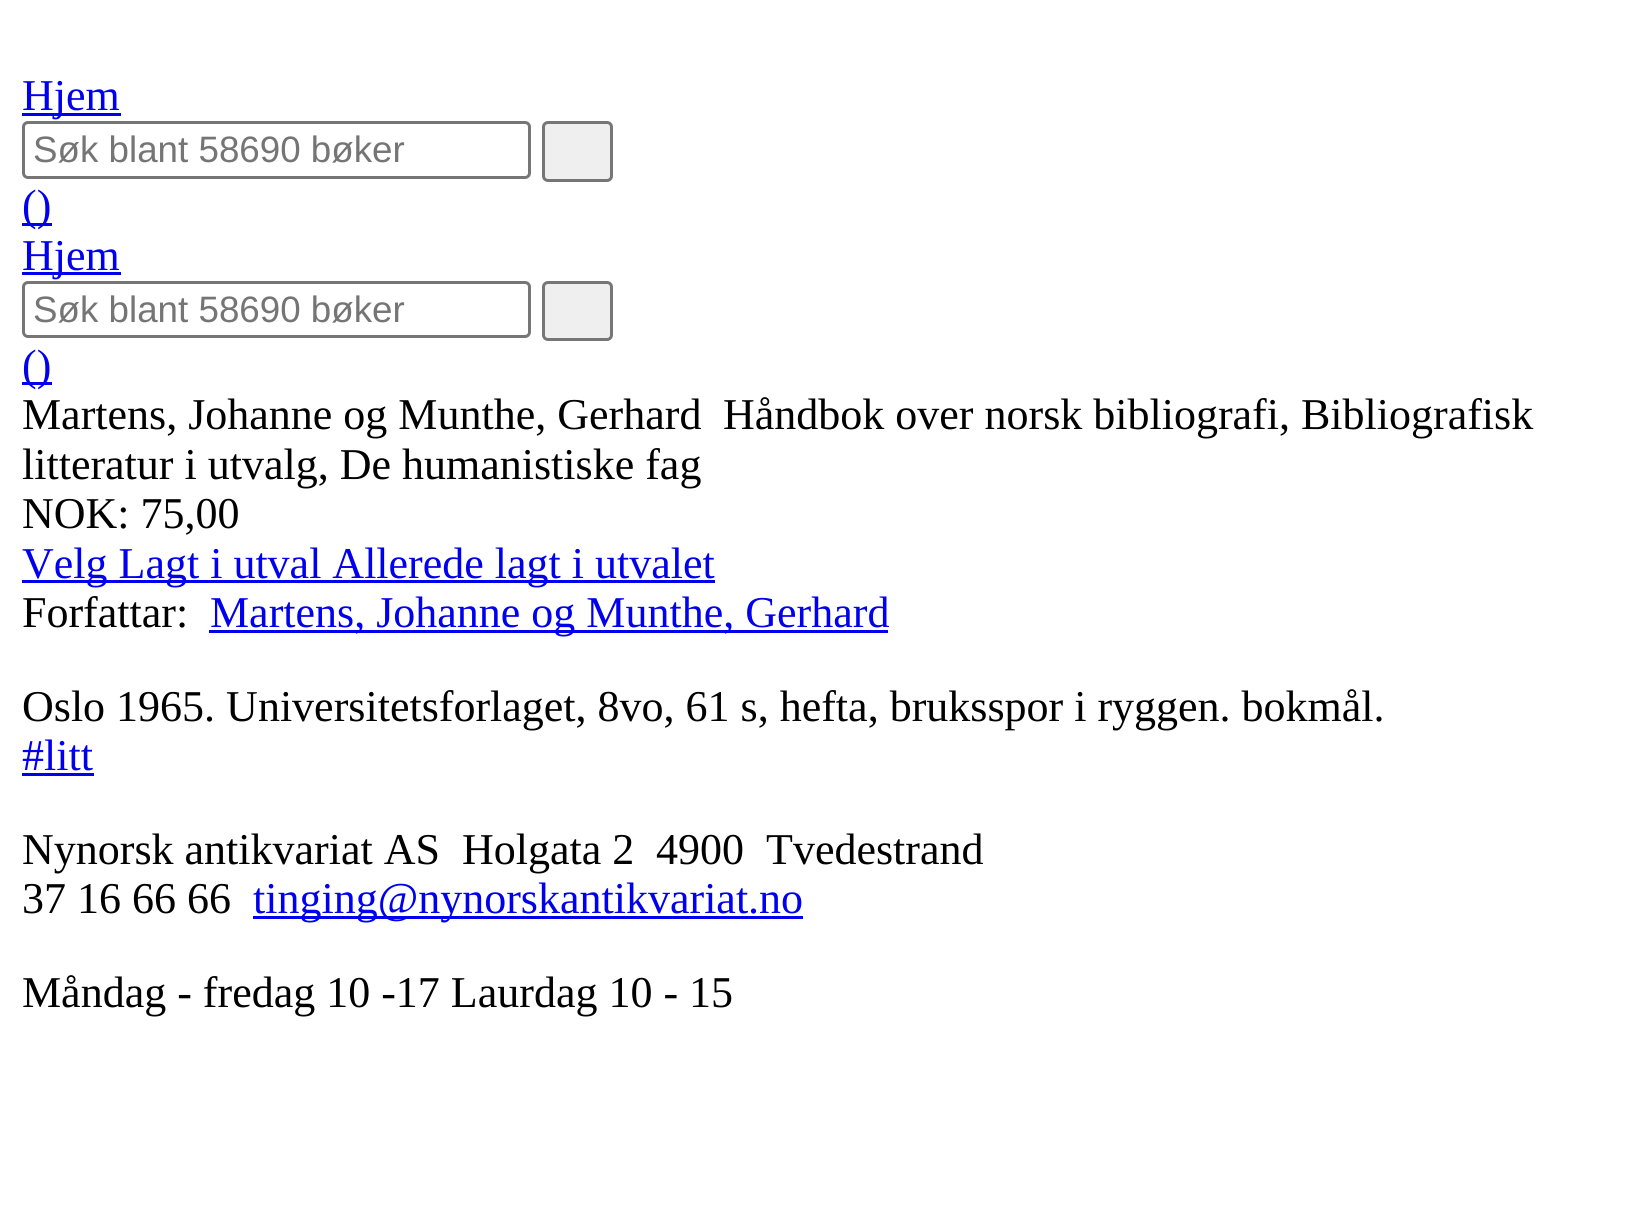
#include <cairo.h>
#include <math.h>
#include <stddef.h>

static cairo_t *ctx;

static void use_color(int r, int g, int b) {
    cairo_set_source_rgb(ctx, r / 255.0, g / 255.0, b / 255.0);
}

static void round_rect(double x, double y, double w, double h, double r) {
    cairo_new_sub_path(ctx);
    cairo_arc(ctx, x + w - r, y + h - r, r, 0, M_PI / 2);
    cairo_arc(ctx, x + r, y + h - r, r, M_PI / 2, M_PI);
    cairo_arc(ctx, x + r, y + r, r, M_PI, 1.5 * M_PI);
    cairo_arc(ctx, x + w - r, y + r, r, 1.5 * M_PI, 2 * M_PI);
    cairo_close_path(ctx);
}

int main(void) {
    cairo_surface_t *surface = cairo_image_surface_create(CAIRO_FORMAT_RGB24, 1630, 1209);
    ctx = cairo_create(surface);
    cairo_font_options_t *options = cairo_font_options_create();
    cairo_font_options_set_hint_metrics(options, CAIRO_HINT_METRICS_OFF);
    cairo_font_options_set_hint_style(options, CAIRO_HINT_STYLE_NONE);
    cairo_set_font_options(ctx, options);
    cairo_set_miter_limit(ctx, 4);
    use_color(255, 255, 255);
    cairo_paint(ctx);
    use_color(0, 0, 238);
    cairo_rectangle(ctx, 22, 113, 99, 3);
    cairo_fill(ctx);
    cairo_select_font_face(ctx, "Liberation Serif", CAIRO_FONT_SLANT_NORMAL, CAIRO_FONT_WEIGHT_NORMAL);
    cairo_set_font_size(ctx, 44);
    cairo_move_to(ctx, 22, 110);
    cairo_show_text(ctx, "Hjem");
    round_rect(23.5, 122.5, 506, 55, 4.5);
    use_color(118, 118, 118);
    cairo_set_line_width(ctx, 3);
    cairo_stroke(ctx);
    cairo_select_font_face(ctx, "Liberation Sans", CAIRO_FONT_SLANT_NORMAL, CAIRO_FONT_WEIGHT_NORMAL);
    cairo_set_font_size(ctx, 36.75);
    use_color(117, 117, 117);
    cairo_move_to(ctx, 33, 162);
    cairo_show_text(ctx, "Søk blant 58690 bøker");
    use_color(239, 239, 239);
    round_rect(543.5, 122.5, 68, 58, 4.5);
    cairo_fill_preserve(ctx);
    use_color(118, 118, 118);
    cairo_stroke(ctx);
    use_color(0, 0, 238);
    cairo_rectangle(ctx, 22, 223, 30, 3);
    cairo_fill(ctx);
    cairo_select_font_face(ctx, "Liberation Serif", CAIRO_FONT_SLANT_NORMAL, CAIRO_FONT_WEIGHT_NORMAL);
    cairo_set_font_size(ctx, 44);
    cairo_move_to(ctx, 22, 220);
    cairo_show_text(ctx, "()");
    cairo_rectangle(ctx, 22, 272, 99, 3);
    cairo_fill(ctx);
    cairo_move_to(ctx, 22, 270);
    cairo_show_text(ctx, "Hjem");
    round_rect(23.5, 282.5, 506, 54, 4.5);
    use_color(118, 118, 118);
    cairo_stroke(ctx);
    cairo_select_font_face(ctx, "Liberation Sans", CAIRO_FONT_SLANT_NORMAL, CAIRO_FONT_WEIGHT_NORMAL);
    cairo_set_font_size(ctx, 36.75);
    use_color(117, 117, 117);
    cairo_move_to(ctx, 33, 322);
    cairo_show_text(ctx, "Søk blant 58690 bøker");
    use_color(239, 239, 239);
    round_rect(543.5, 282.5, 68, 57, 4.5);
    cairo_fill_preserve(ctx);
    use_color(118, 118, 118);
    cairo_stroke(ctx);
    use_color(0, 0, 238);
    cairo_rectangle(ctx, 22, 382, 30, 3);
    cairo_fill(ctx);
    cairo_select_font_face(ctx, "Liberation Serif", CAIRO_FONT_SLANT_NORMAL, CAIRO_FONT_WEIGHT_NORMAL);
    cairo_set_font_size(ctx, 44);
    cairo_move_to(ctx, 22, 380);
    cairo_show_text(ctx, "()");
    use_color(0, 0, 0);
    cairo_move_to(ctx, 22, 429);
    cairo_show_text(ctx, "Martens, Johanne og Munthe, Gerhard");
    cairo_move_to(ctx, 723, 429);
    cairo_show_text(ctx, "Håndbok over norsk bibliografi, Bibliografisk");
    cairo_move_to(ctx, 22, 479);
    cairo_show_text(ctx, "litteratur i utvalg, De humanistiske fag");
    cairo_move_to(ctx, 22, 528);
    cairo_show_text(ctx, "NOK: 75,00");
    use_color(0, 0, 238);
    cairo_rectangle(ctx, 22, 580, 693, 3);
    cairo_fill(ctx);
    cairo_move_to(ctx, 22, 578);
    cairo_show_text(ctx, "Velg Lagt i utval Allerede lagt i utvalet");
    use_color(0, 0, 0);
    cairo_move_to(ctx, 22, 627);
    cairo_show_text(ctx, "Forfattar:");
    use_color(0, 0, 238);
    cairo_rectangle(ctx, 209, 630, 679, 3);
    cairo_fill(ctx);
    cairo_move_to(ctx, 210, 627);
    cairo_show_text(ctx, "Martens, Johanne og Munthe, Gerhard");
    use_color(0, 0, 0);
    cairo_move_to(ctx, 22, 721);
    cairo_show_text(ctx, "Oslo 1965. Universitetsforlaget, 8vo, 61 s, hefta, bruksspor i ryggen. bokmål.");
    use_color(0, 0, 238);
    cairo_move_to(ctx, 22, 770);
    cairo_show_text(ctx, "#litt");
    cairo_rectangle(ctx, 22, 773, 72, 3);
    cairo_fill(ctx);
    use_color(0, 0, 0);
    cairo_move_to(ctx, 22, 864);
    cairo_show_text(ctx, "Nynorsk antikvariat AS");
    cairo_move_to(ctx, 462, 864);
    cairo_show_text(ctx, "Holgata 2");
    cairo_move_to(ctx, 656, 864);
    cairo_show_text(ctx, "4900");
    cairo_move_to(ctx, 766, 864);
    cairo_show_text(ctx, "Tvedestrand");
    cairo_move_to(ctx, 22, 913);
    cairo_show_text(ctx, "37 16 66 66");
    use_color(0, 0, 238);
    cairo_rectangle(ctx, 253, 916, 550, 3);
    cairo_fill(ctx);
    cairo_move_to(ctx, 253, 913);
    cairo_show_text(ctx, "tinging@nynorskantikvariat.no");
    use_color(0, 0, 0);
    cairo_move_to(ctx, 22, 1007);
    cairo_show_text(ctx, "Måndag - fredag 10 -17 Laurdag 10 - 15");
    cairo_surface_write_to_png(surface, "result.png");
    cairo_font_options_destroy(options);
    cairo_destroy(ctx);
    cairo_surface_destroy(surface);
    return 0;
}
